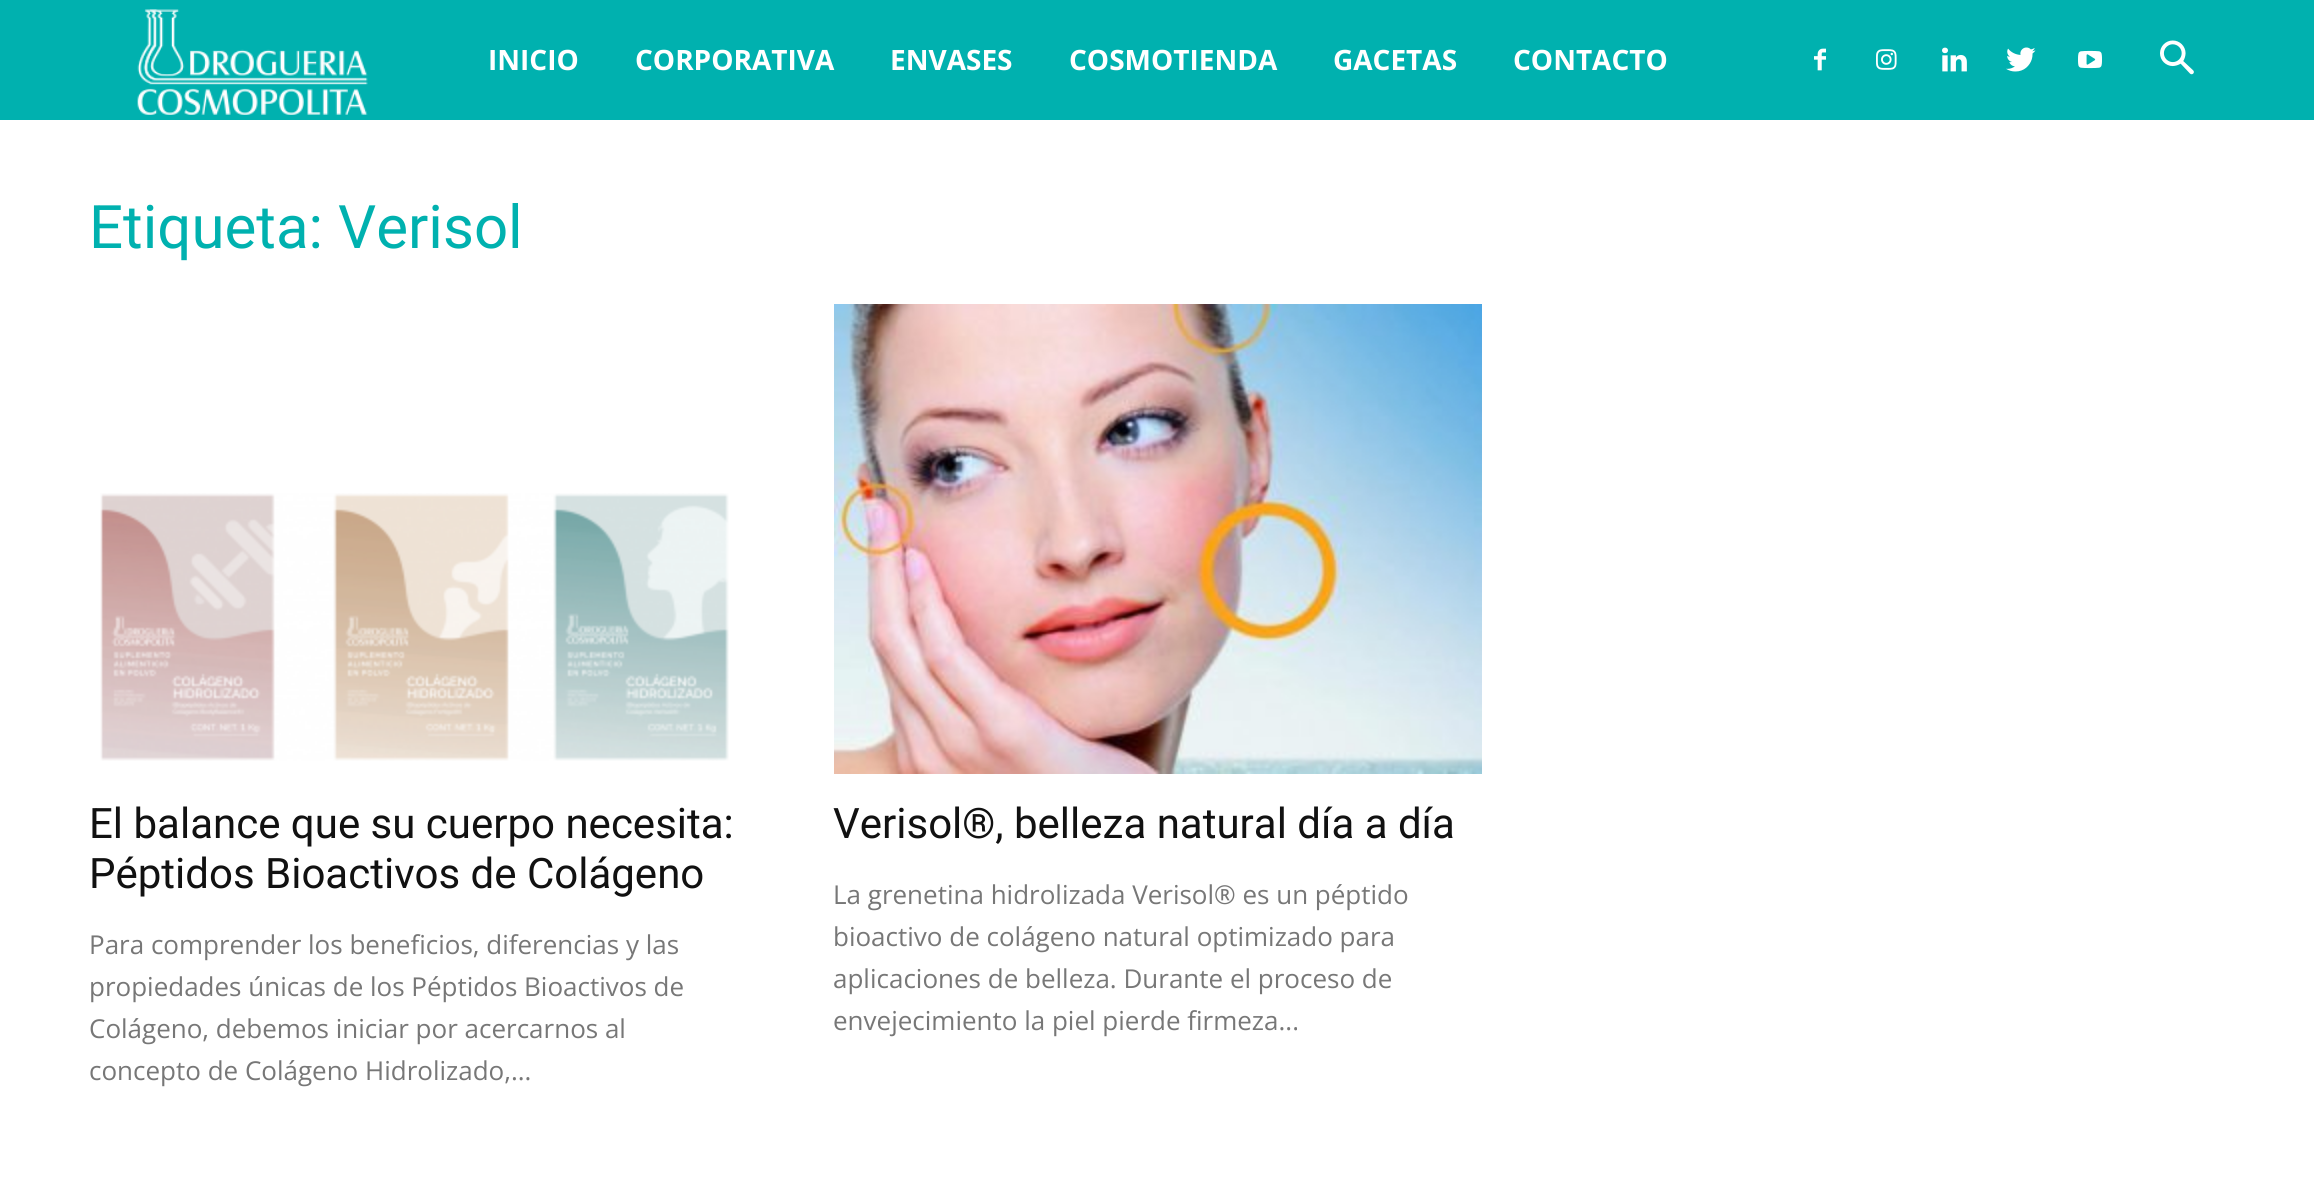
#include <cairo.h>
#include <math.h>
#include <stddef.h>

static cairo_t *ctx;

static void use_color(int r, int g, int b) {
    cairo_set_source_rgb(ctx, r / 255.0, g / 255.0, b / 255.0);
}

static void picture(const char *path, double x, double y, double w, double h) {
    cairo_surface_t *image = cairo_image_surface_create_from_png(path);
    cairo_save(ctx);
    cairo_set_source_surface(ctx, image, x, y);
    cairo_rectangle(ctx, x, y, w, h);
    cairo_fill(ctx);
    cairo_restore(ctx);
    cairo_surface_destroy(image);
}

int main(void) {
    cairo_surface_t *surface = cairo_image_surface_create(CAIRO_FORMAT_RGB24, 2314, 1182);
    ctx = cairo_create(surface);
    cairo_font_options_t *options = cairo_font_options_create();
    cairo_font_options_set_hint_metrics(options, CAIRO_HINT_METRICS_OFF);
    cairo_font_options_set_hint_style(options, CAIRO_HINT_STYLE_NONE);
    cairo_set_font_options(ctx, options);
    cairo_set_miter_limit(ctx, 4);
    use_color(255, 255, 255);
    cairo_paint(ctx);
    use_color(0, 177, 175);
    cairo_rectangle(ctx, 0, 0, 2314, 120);
    cairo_fill(ctx);
    picture("img1.png", 137, 9, 231, 106);
    cairo_select_font_face(ctx, "Open Sans", CAIRO_FONT_SLANT_NORMAL, CAIRO_FONT_WEIGHT_BOLD);
    cairo_set_font_size(ctx, 28);
    use_color(255, 255, 255);
    cairo_move_to(ctx, 488, 70);
    cairo_show_text(ctx, "INICIO");
    cairo_move_to(ctx, 635, 70);
    cairo_show_text(ctx, "CORPORATIVA");
    cairo_move_to(ctx, 890, 70);
    cairo_show_text(ctx, "ENVASES");
    cairo_move_to(ctx, 1069, 70);
    cairo_show_text(ctx, "COSMOTIENDA");
    cairo_move_to(ctx, 1333, 70);
    cairo_show_text(ctx, "GACETAS");
    cairo_move_to(ctx, 1513, 70);
    cairo_show_text(ctx, "CONTACTO");
    picture("img2.png", 1814, 48, 12, 23);
    picture("img3.png", 1876, 49, 21, 21);
    picture("img4.png", 1942, 47, 25, 25);
    picture("img5.png", 2006, 47, 30, 25);
    picture("img6.png", 2078, 50, 24, 19);
    picture("img7.png", 2160, 40, 34, 35);
    cairo_select_font_face(ctx, "Roboto", CAIRO_FONT_SLANT_NORMAL, CAIRO_FONT_WEIGHT_NORMAL);
    cairo_set_font_size(ctx, 60);
    use_color(0, 177, 175);
    cairo_move_to(ctx, 89, 248);
    cairo_show_text(ctx, "Etiqueta: Verisol");
    picture("img8.png", 100, 493, 629, 268);
    cairo_set_font_size(ctx, 42);
    use_color(17, 17, 17);
    cairo_move_to(ctx, 89, 838);
    cairo_show_text(ctx, "El balance que su cuerpo necesita:");
    cairo_move_to(ctx, 89, 888);
    cairo_show_text(ctx, "Péptidos Bioactivos de Colágeno");
    cairo_select_font_face(ctx, "Open Sans", CAIRO_FONT_SLANT_NORMAL, CAIRO_FONT_WEIGHT_NORMAL);
    cairo_set_font_size(ctx, 26);
    use_color(119, 119, 119);
    cairo_move_to(ctx, 89, 954);
    cairo_show_text(ctx, "Para comprender los beneficios, diferencias y las");
    cairo_move_to(ctx, 89, 996);
    cairo_show_text(ctx, "propiedades únicas de los Péptidos Bioactivos de");
    cairo_move_to(ctx, 89, 1038);
    cairo_show_text(ctx, "Colágeno, debemos iniciar por acercarnos al");
    cairo_move_to(ctx, 89, 1080);
    cairo_show_text(ctx, "concepto de Colágeno Hidrolizado,...");
    picture("img9.png", 834, 304, 648, 470);
    cairo_select_font_face(ctx, "Roboto", CAIRO_FONT_SLANT_NORMAL, CAIRO_FONT_WEIGHT_NORMAL);
    cairo_set_font_size(ctx, 42);
    use_color(17, 17, 17);
    cairo_move_to(ctx, 833, 838);
    cairo_show_text(ctx, "Verisol®, belleza natural día a día");
    cairo_select_font_face(ctx, "Open Sans", CAIRO_FONT_SLANT_NORMAL, CAIRO_FONT_WEIGHT_NORMAL);
    cairo_set_font_size(ctx, 26);
    use_color(119, 119, 119);
    cairo_move_to(ctx, 833, 904);
    cairo_show_text(ctx, "La grenetina hidrolizada Verisol® es un péptido");
    cairo_move_to(ctx, 833, 946);
    cairo_show_text(ctx, "bioactivo de colágeno natural optimizado para");
    cairo_move_to(ctx, 833, 988);
    cairo_show_text(ctx, "aplicaciones de belleza. Durante el proceso de");
    cairo_move_to(ctx, 833, 1030);
    cairo_show_text(ctx, "envejecimiento la piel pierde firmeza...");
    cairo_surface_write_to_png(surface, "result.png");
    cairo_font_options_destroy(options);
    cairo_destroy(ctx);
    cairo_surface_destroy(surface);
    return 0;
}
